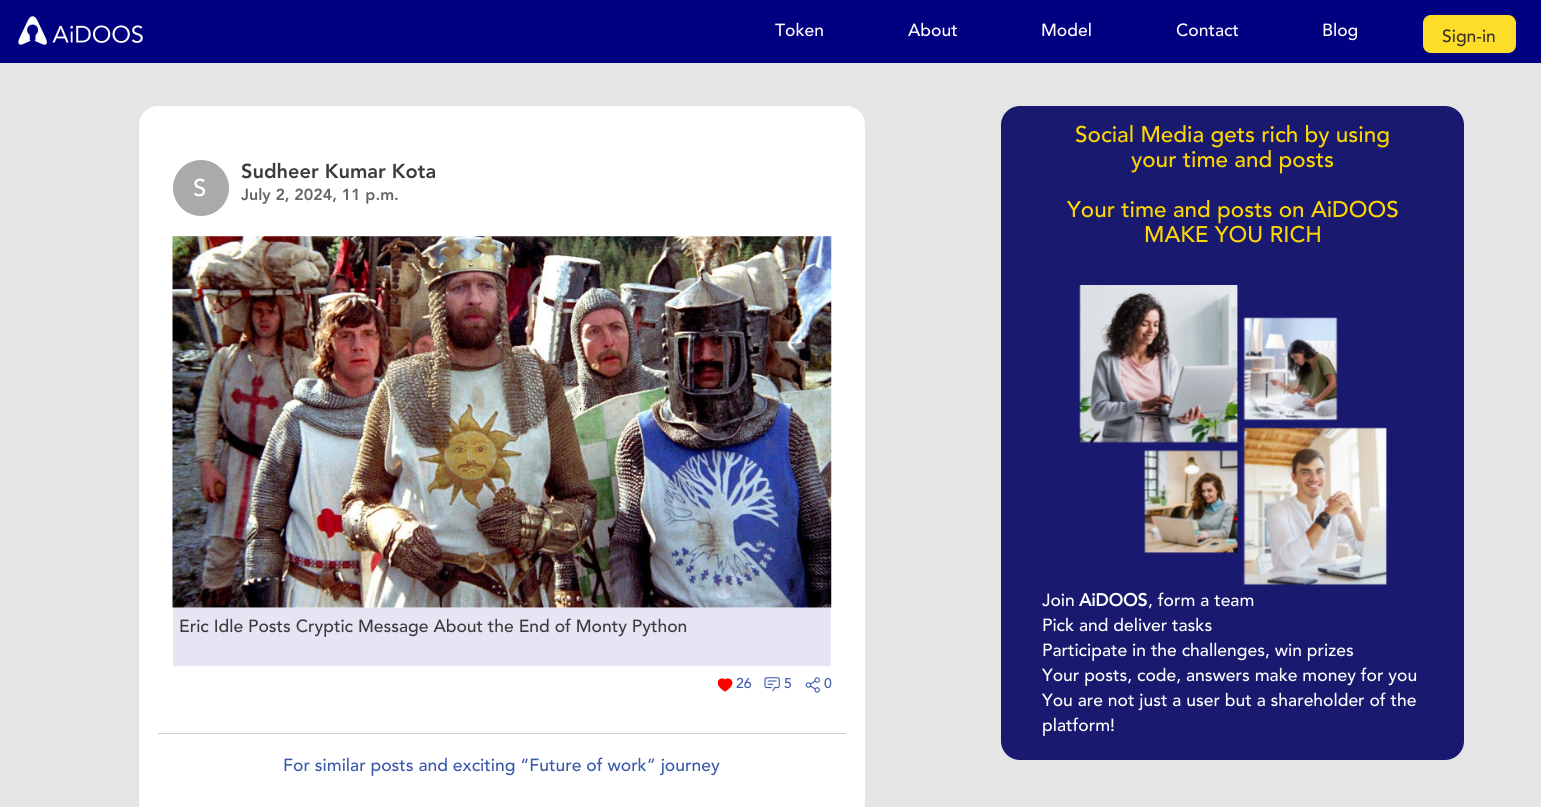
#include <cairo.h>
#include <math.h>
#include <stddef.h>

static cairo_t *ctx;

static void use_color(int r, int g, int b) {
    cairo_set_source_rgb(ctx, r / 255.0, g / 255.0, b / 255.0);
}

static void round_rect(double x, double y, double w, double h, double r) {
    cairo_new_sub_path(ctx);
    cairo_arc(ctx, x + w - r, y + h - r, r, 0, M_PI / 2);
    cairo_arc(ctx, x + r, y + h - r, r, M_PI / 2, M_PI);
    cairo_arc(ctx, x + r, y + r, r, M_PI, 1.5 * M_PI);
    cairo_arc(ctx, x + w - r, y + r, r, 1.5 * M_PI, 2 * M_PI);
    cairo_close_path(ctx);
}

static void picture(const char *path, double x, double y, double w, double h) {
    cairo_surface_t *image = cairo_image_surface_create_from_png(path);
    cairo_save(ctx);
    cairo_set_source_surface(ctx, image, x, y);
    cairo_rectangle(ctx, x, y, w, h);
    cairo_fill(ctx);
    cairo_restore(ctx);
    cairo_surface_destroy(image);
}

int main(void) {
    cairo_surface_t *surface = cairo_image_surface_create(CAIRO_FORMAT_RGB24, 1541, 807);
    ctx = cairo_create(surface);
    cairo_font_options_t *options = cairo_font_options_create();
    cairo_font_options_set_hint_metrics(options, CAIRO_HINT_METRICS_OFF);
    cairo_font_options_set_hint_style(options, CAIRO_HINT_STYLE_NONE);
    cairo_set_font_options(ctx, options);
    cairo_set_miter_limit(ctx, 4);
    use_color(229, 229, 229);
    cairo_paint(ctx);
    use_color(0, 0, 128);
    cairo_rectangle(ctx, 0, 0, 1541, 63);
    cairo_fill(ctx);
    picture("img1.png", 18, 16, 125, 29);
    cairo_select_font_face(ctx, "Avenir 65 Medium", CAIRO_FONT_SLANT_NORMAL, CAIRO_FONT_WEIGHT_NORMAL);
    cairo_set_font_size(ctx, 17.5);
    use_color(255, 255, 255);
    cairo_move_to(ctx, 775, 36);
    cairo_show_text(ctx, "Token");
    cairo_move_to(ctx, 908, 36);
    cairo_show_text(ctx, "About");
    cairo_move_to(ctx, 1041, 36);
    cairo_show_text(ctx, "Model");
    cairo_move_to(ctx, 1176, 36);
    cairo_show_text(ctx, "Contact");
    cairo_move_to(ctx, 1322, 36);
    cairo_show_text(ctx, "Blog");
    use_color(253, 221, 39);
    round_rect(1423, 15, 93, 38, 8);
    cairo_fill(ctx);
    use_color(57, 54, 39);
    cairo_move_to(ctx, 1442, 42);
    cairo_show_text(ctx, "Sign-in");
    use_color(255, 255, 255);
    round_rect(139, 106, 726, 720, 19);
    cairo_fill(ctx);
    use_color(170, 170, 170);
    cairo_arc(ctx, 201, 188, 28, 0, 2 * M_PI);
    cairo_fill(ctx);
    cairo_set_font_size(ctx, 24);
    use_color(255, 255, 255);
    cairo_move_to(ctx, 193, 196);
    cairo_show_text(ctx, "S");
    cairo_select_font_face(ctx, "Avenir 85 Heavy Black", CAIRO_FONT_SLANT_NORMAL, CAIRO_FONT_WEIGHT_NORMAL);
    cairo_set_font_size(ctx, 20);
    use_color(60, 60, 60);
    cairo_move_to(ctx, 241, 178);
    cairo_show_text(ctx, "Sudheer Kumar Kota");
    cairo_set_font_size(ctx, 16);
    use_color(102, 102, 102);
    cairo_move_to(ctx, 241, 200);
    cairo_show_text(ctx, "July 2, 2024, 11 p.m.");
    use_color(245, 245, 245);
    cairo_rectangle(ctx, 173, 236, 658, 372);
    cairo_fill(ctx);
    picture("img2.png", 172, 236, 660, 372);
    use_color(229, 229, 244);
    cairo_rectangle(ctx, 173, 608, 658, 58);
    cairo_fill(ctx);
    cairo_select_font_face(ctx, "Avenir 65 Medium", CAIRO_FONT_SLANT_NORMAL, CAIRO_FONT_WEIGHT_NORMAL);
    cairo_set_font_size(ctx, 17.5);
    use_color(60, 60, 60);
    cairo_move_to(ctx, 179, 632);
    cairo_show_text(ctx, "Eric Idle Posts Cryptic Message About the End of Monty Python");
    picture("img3.png", 718, 678, 15, 14);
    cairo_set_font_size(ctx, 14);
    use_color(61, 89, 171);
    cairo_move_to(ctx, 736, 688);
    cairo_show_text(ctx, "26");
    picture("img4.png", 764, 677, 16, 15);
    cairo_move_to(ctx, 784, 688);
    cairo_show_text(ctx, "5");
    picture("img5.png", 805, 677, 15, 16);
    cairo_move_to(ctx, 824, 688);
    cairo_show_text(ctx, "0");
    use_color(206, 206, 206);
    cairo_rectangle(ctx, 158, 733, 688, 1);
    cairo_fill(ctx);
    cairo_set_font_size(ctx, 17.5);
    use_color(61, 89, 171);
    cairo_move_to(ctx, 283, 771);
    cairo_show_text(ctx, "For similar posts and exciting “Future of work” journey");
    use_color(25, 25, 112);
    round_rect(1001, 106, 463, 654, 19);
    cairo_fill(ctx);
    cairo_set_font_size(ctx, 22.5);
    use_color(255, 215, 0);
    cairo_move_to(ctx, 1075, 142);
    cairo_show_text(ctx, "Social Media gets rich by using");
    cairo_move_to(ctx, 1131, 167);
    cairo_show_text(ctx, "your time and posts");
    cairo_move_to(ctx, 1067, 217);
    cairo_show_text(ctx, "Your time and posts on AiDOOS");
    cairo_move_to(ctx, 1144, 242);
    cairo_show_text(ctx, "MAKE YOU RICH");
    use_color(34, 34, 99);
    cairo_rectangle(ctx, 1001, 268, 463, 1);
    cairo_fill(ctx);
    picture("img6.png", 1079, 285, 308, 301);
    cairo_set_font_size(ctx, 17.5);
    use_color(255, 255, 255);
    cairo_move_to(ctx, 1042, 606);
    cairo_show_text(ctx, "Join");
    cairo_select_font_face(ctx, "Avenir 65", CAIRO_FONT_SLANT_NORMAL, CAIRO_FONT_WEIGHT_BOLD);
    cairo_move_to(ctx, 1079, 606);
    cairo_show_text(ctx, "AiDOOS");
    cairo_select_font_face(ctx, "Avenir 65 Medium", CAIRO_FONT_SLANT_NORMAL, CAIRO_FONT_WEIGHT_NORMAL);
    cairo_move_to(ctx, 1148, 606);
    cairo_show_text(ctx, ", form a team");
    cairo_move_to(ctx, 1042, 631);
    cairo_show_text(ctx, "Pick and deliver tasks");
    cairo_move_to(ctx, 1042, 656);
    cairo_show_text(ctx, "Participate in the challenges, win prizes");
    cairo_move_to(ctx, 1042, 681);
    cairo_show_text(ctx, "Your posts, code, answers make money for you");
    cairo_move_to(ctx, 1042, 706);
    cairo_show_text(ctx, "You are not just a user but a shareholder of the");
    cairo_move_to(ctx, 1042, 731);
    cairo_show_text(ctx, "platform!");
    cairo_surface_write_to_png(surface, "result.png");
    cairo_font_options_destroy(options);
    cairo_destroy(ctx);
    cairo_surface_destroy(surface);
    return 0;
}
